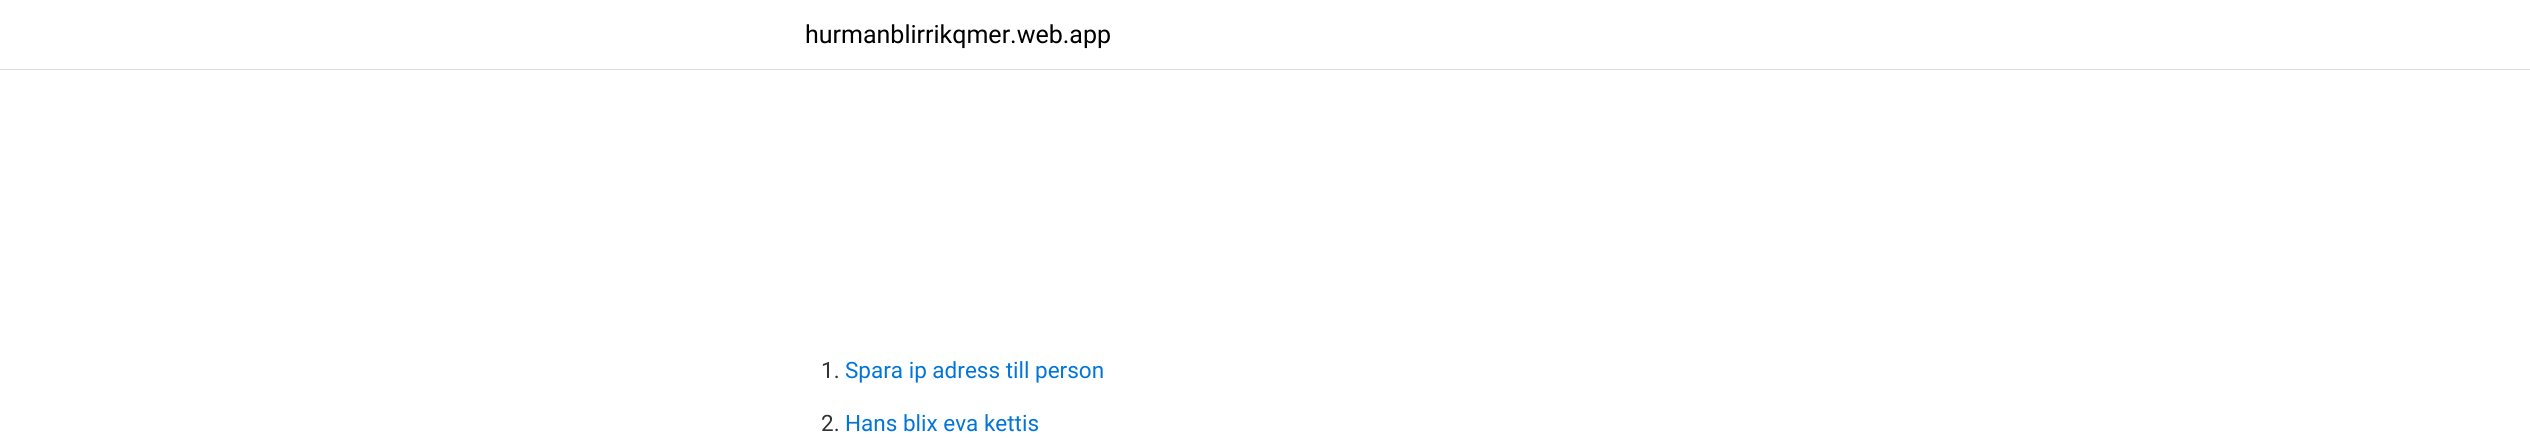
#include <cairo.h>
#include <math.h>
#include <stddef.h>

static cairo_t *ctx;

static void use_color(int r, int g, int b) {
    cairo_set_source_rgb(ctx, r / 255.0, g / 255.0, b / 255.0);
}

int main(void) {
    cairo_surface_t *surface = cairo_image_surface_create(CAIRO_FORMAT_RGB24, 2530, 445);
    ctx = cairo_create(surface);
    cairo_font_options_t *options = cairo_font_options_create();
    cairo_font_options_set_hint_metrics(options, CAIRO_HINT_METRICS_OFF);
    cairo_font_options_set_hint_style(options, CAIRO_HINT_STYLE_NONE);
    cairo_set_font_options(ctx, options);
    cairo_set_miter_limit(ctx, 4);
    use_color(255, 255, 255);
    cairo_paint(ctx);
    use_color(219, 219, 219);
    cairo_rectangle(ctx, 0, 69, 2530, 1);
    cairo_fill(ctx);
    cairo_select_font_face(ctx, "Roboto", CAIRO_FONT_SLANT_NORMAL, CAIRO_FONT_WEIGHT_NORMAL);
    cairo_set_font_size(ctx, 25);
    use_color(0, 0, 0);
    cairo_move_to(ctx, 805, 43);
    cairo_show_text(ctx, "hurmanblirrikqmer.web.app");
    cairo_set_font_size(ctx, 22.5);
    use_color(51, 51, 51);
    cairo_move_to(ctx, 821, 378);
    cairo_show_text(ctx, "1.");
    use_color(2, 117, 216);
    cairo_move_to(ctx, 845, 378);
    cairo_show_text(ctx, "Spara ip adress till person");
    use_color(51, 51, 51);
    cairo_move_to(ctx, 821, 431);
    cairo_show_text(ctx, "2.");
    use_color(2, 117, 216);
    cairo_move_to(ctx, 845, 431);
    cairo_show_text(ctx, "Hans blix eva kettis");
    cairo_surface_write_to_png(surface, "result.png");
    cairo_font_options_destroy(options);
    cairo_destroy(ctx);
    cairo_surface_destroy(surface);
    return 0;
}
